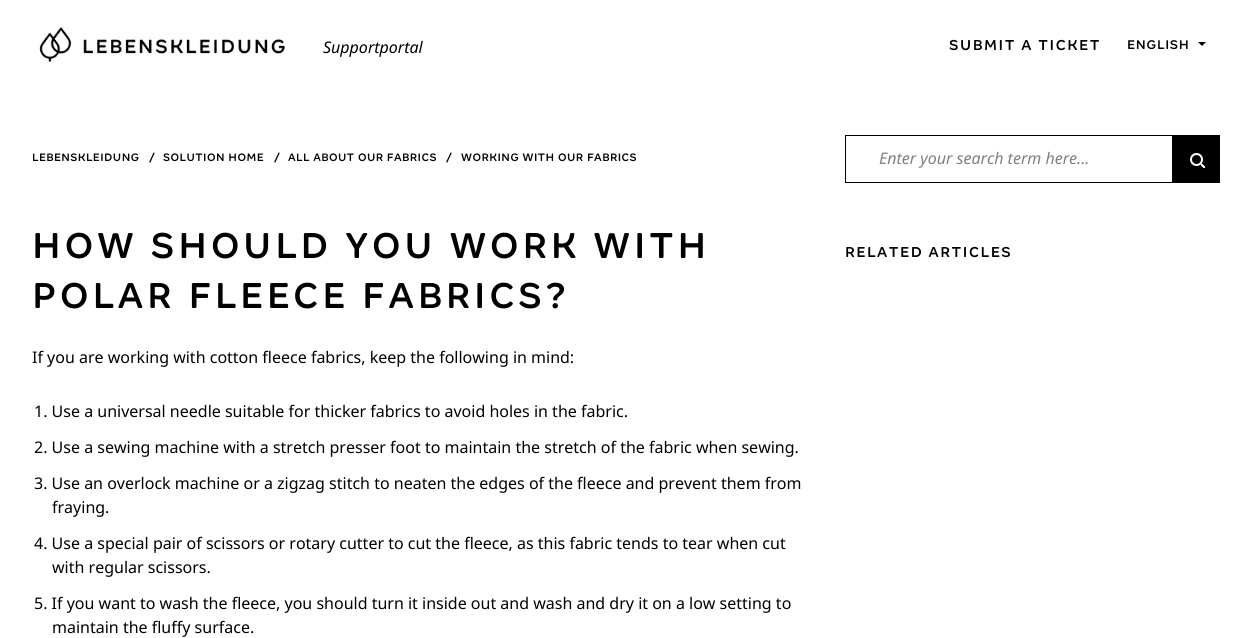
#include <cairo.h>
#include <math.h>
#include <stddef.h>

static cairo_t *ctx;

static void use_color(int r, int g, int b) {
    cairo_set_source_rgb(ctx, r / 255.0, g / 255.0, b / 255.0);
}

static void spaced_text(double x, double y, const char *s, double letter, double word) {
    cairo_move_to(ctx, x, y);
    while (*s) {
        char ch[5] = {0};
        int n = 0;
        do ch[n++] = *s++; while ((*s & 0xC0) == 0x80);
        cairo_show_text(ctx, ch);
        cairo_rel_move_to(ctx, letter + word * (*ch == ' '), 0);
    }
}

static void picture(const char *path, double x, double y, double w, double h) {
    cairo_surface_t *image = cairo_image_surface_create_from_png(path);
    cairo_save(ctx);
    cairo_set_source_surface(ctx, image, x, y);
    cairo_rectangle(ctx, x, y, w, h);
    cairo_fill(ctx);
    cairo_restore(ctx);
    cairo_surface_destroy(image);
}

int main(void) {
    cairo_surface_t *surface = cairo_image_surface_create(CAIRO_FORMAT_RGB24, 1252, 638);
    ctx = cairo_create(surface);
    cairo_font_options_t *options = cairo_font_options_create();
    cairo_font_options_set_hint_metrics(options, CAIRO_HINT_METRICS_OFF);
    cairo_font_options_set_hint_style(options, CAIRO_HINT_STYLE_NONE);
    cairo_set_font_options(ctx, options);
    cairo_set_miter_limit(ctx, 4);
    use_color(255, 255, 255);
    cairo_paint(ctx);
    picture("img1.png", 39, 27, 246, 35);
    cairo_select_font_face(ctx, "Noto Sans", CAIRO_FONT_SLANT_ITALIC, CAIRO_FONT_WEIGHT_NORMAL);
    cairo_set_font_size(ctx, 16);
    use_color(0, 0, 0);
    cairo_move_to(ctx, 323, 53);
    cairo_show_text(ctx, "Supportportal");
    cairo_select_font_face(ctx, "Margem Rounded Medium", CAIRO_FONT_SLANT_NORMAL, CAIRO_FONT_WEIGHT_NORMAL);
    spaced_text(949, 50, "SUBMIT A TICKET", 1.6, 0);
    cairo_set_font_size(ctx, 14);
    spaced_text(1127, 49, "ENGLISH", 0.75, 0);
    cairo_new_path(ctx);
    cairo_move_to(ctx, 1198, 42);
    cairo_line_to(ctx, 1206, 42);
    cairo_line_to(ctx, 1202, 46);
    cairo_close_path(ctx);
    cairo_fill(ctx);
    cairo_set_font_size(ctx, 12);
    spaced_text(32, 161, "LEBENSKLEIDUNG", 0.5, 0);
    spaced_text(149, 161, "/", 0.5, 0);
    spaced_text(163, 161, "SOLUTION HOME", 0.5, 0);
    spaced_text(274, 161, "/", 0.5, 0);
    spaced_text(288, 161, "ALL ABOUT OUR FABRICS", 0.5, 0);
    spaced_text(446, 161, "/", 0.5, 0);
    spaced_text(461, 161, "WORKING WITH OUR FABRICS", 0.5, 0);
    cairo_rectangle(ctx, 845.5, 135.5, 374, 47);
    cairo_set_line_width(ctx, 1);
    cairo_stroke(ctx);
    cairo_select_font_face(ctx, "Noto Sans", CAIRO_FONT_SLANT_ITALIC, CAIRO_FONT_WEIGHT_NORMAL);
    cairo_set_font_size(ctx, 16);
    use_color(128, 128, 128);
    cairo_move_to(ctx, 879, 164);
    cairo_show_text(ctx, "Enter your search term here...");
    use_color(0, 0, 0);
    cairo_rectangle(ctx, 1172, 136, 47, 46);
    cairo_fill(ctx);
    picture("img2.png", 1190, 153, 15, 15);
    cairo_select_font_face(ctx, "Margem Rounded Medium", CAIRO_FONT_SLANT_NORMAL, CAIRO_FONT_WEIGHT_NORMAL);
    cairo_set_font_size(ctx, 40);
    spaced_text(32, 258, "HOW SHOULD YOU WORK WITH", 4, 0);
    spaced_text(32, 308, "POLAR FLEECE FABRICS?", 4, 0);
    cairo_select_font_face(ctx, "Noto Sans", CAIRO_FONT_SLANT_NORMAL, CAIRO_FONT_WEIGHT_NORMAL);
    cairo_set_font_size(ctx, 16);
    cairo_move_to(ctx, 32, 363);
    cairo_show_text(ctx, "If you are working with cotton fleece fabrics, keep the following in mind:");
    cairo_move_to(ctx, 34, 417);
    cairo_show_text(ctx, "1. Use a universal needle suitable for thicker fabrics to avoid holes in the fabric.");
    cairo_move_to(ctx, 34, 453);
    cairo_show_text(ctx, "2. Use a sewing machine with a stretch presser foot to maintain the stretch of the fabric when sewing.");
    cairo_move_to(ctx, 34, 489);
    cairo_show_text(ctx, "3. Use an overlock machine or a zigzag stitch to neaten the edges of the fleece and prevent them from");
    cairo_move_to(ctx, 52, 513);
    cairo_show_text(ctx, "fraying.");
    cairo_move_to(ctx, 34, 549);
    cairo_show_text(ctx, "4. Use a special pair of scissors or rotary cutter to cut the fleece, as this fabric tends to tear when cut");
    cairo_move_to(ctx, 52, 573);
    cairo_show_text(ctx, "with regular scissors.");
    cairo_move_to(ctx, 34, 609);
    cairo_show_text(ctx, "5. If you want to wash the fleece, you should turn it inside out and wash and dry it on a low setting to");
    cairo_move_to(ctx, 52, 633);
    cairo_show_text(ctx, "maintain the fluffy surface.");
    cairo_select_font_face(ctx, "Margem Rounded Medium", CAIRO_FONT_SLANT_NORMAL, CAIRO_FONT_WEIGHT_NORMAL);
    spaced_text(845, 257, "RELATED ARTICLES", 1.6, 0);
    cairo_surface_write_to_png(surface, "result.png");
    cairo_font_options_destroy(options);
    cairo_destroy(ctx);
    cairo_surface_destroy(surface);
    return 0;
}
